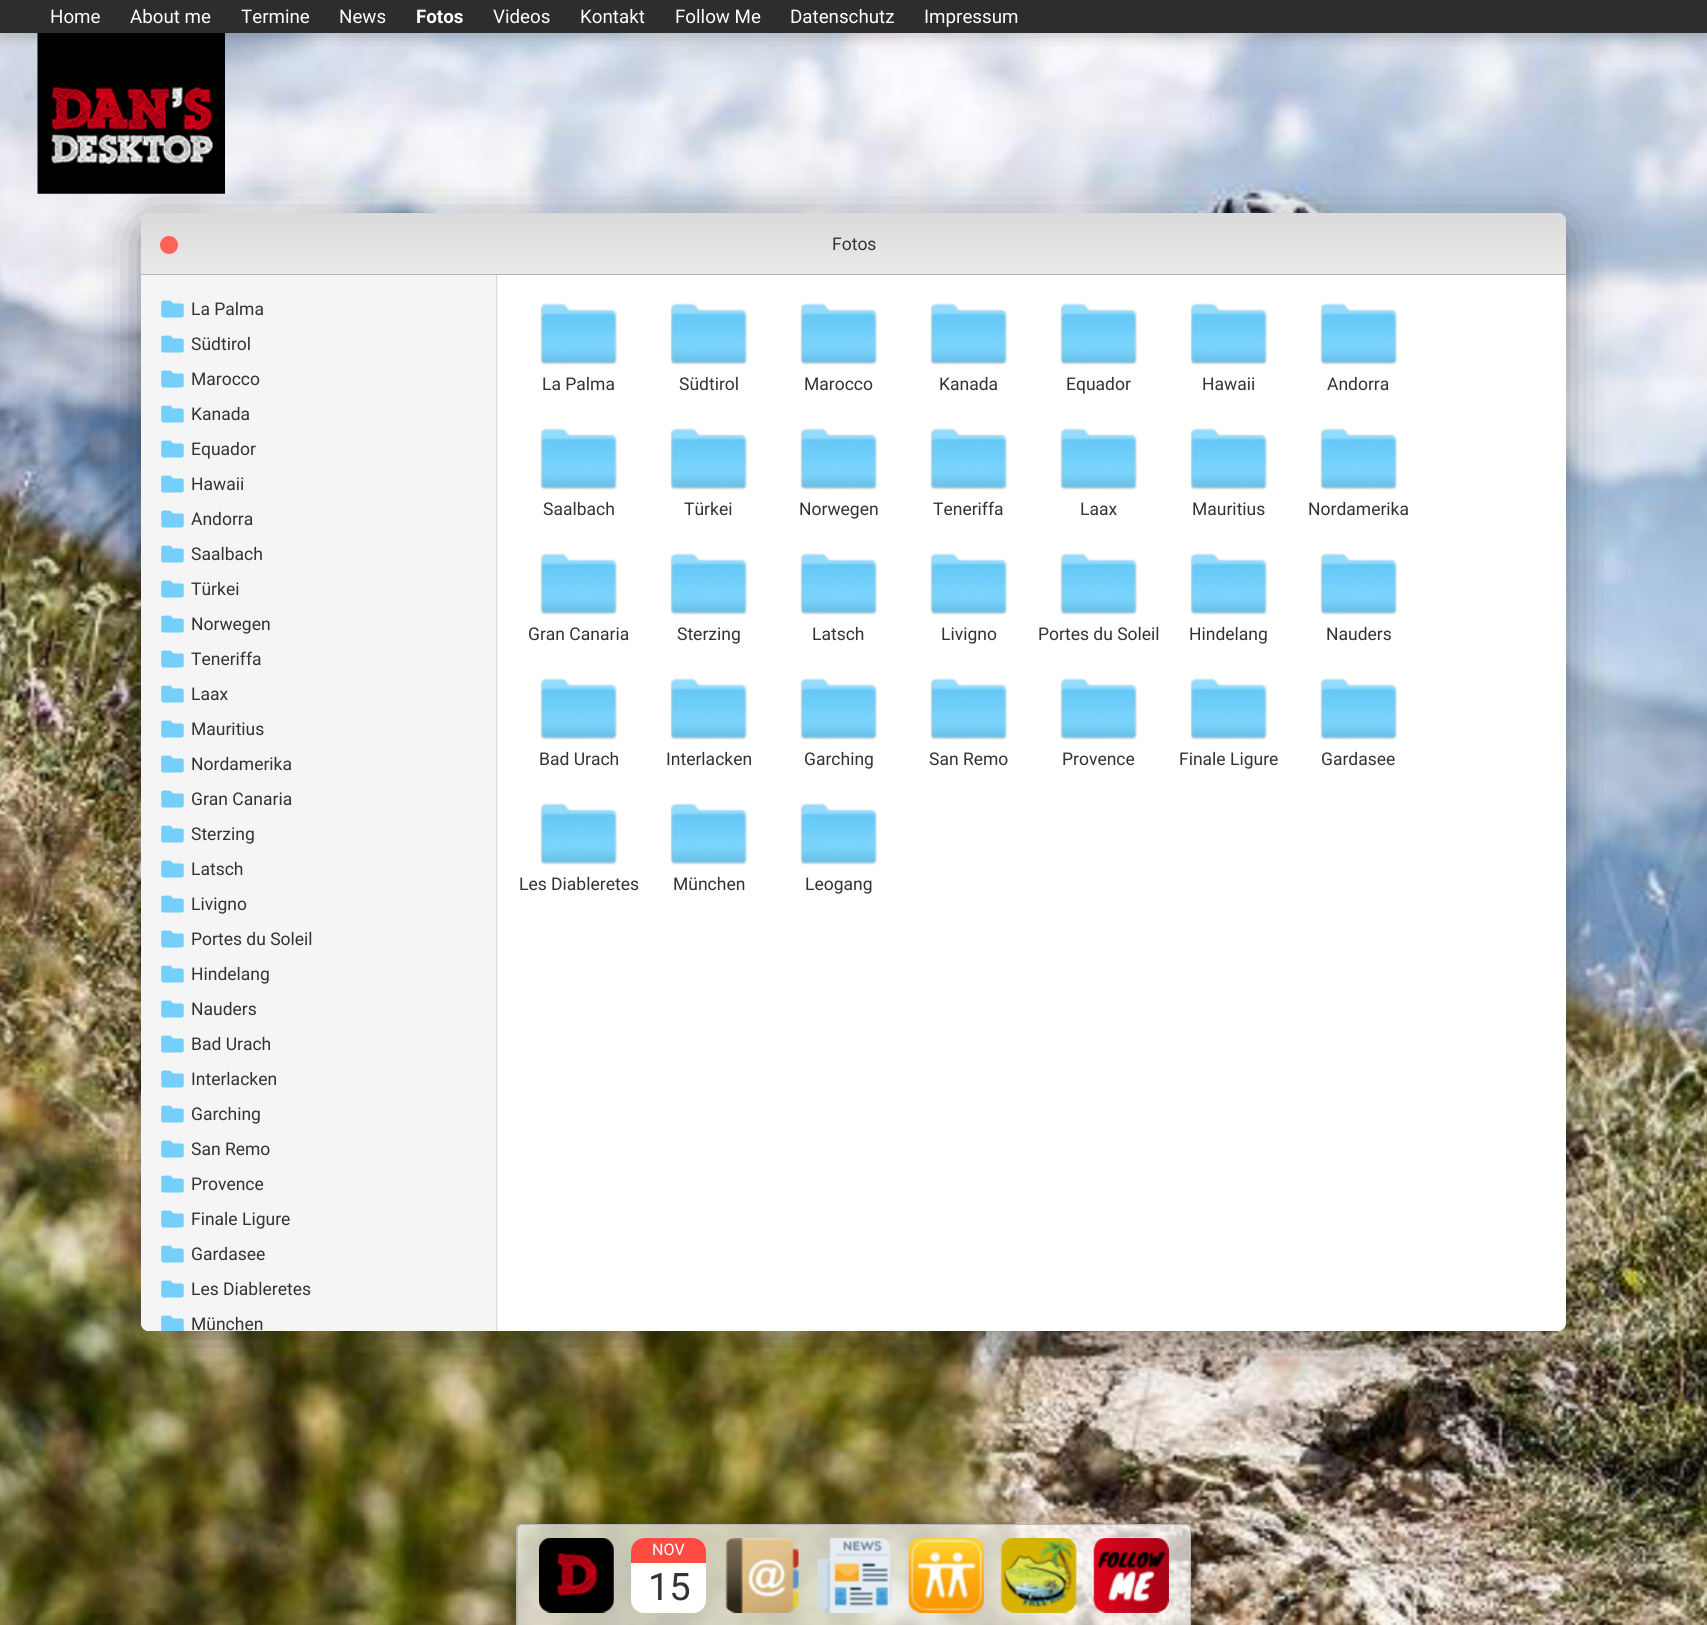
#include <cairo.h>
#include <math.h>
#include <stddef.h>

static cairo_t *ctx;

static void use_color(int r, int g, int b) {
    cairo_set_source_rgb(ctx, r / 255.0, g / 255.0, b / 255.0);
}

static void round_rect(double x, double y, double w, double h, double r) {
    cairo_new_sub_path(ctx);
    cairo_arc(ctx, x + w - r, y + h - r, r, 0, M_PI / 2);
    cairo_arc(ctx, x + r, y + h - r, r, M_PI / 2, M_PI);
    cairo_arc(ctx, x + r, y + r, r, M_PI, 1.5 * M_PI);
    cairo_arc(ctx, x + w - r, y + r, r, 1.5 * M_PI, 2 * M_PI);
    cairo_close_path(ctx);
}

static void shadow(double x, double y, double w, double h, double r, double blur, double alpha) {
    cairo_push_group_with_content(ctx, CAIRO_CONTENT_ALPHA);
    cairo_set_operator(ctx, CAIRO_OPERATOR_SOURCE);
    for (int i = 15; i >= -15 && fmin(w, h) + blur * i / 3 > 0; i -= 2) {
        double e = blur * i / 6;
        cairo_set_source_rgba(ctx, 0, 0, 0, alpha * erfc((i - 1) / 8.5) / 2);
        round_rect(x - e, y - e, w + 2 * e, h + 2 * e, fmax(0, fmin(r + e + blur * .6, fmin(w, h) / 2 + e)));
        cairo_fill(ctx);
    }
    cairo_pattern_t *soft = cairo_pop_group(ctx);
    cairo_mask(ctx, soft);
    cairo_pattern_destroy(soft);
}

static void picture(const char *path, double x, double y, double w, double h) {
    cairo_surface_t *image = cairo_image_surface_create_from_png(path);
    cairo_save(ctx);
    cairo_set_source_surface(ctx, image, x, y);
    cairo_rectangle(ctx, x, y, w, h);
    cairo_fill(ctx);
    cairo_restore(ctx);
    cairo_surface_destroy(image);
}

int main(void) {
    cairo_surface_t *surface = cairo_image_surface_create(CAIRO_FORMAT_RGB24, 1707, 1625);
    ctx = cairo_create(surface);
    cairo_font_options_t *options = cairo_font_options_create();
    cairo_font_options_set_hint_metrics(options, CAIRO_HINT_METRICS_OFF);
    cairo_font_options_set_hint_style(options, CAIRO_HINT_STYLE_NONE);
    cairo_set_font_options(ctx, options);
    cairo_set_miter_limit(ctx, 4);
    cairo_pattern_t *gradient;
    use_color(255, 255, 255);
    cairo_paint(ctx);
    picture("img13.png", 0, 33, 1707, 1592);
    picture("img12.png", 37, 33, 188, 161);
    use_color(0, 0, 0);
    shadow(0, 8, 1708, 32, 0, 12.5, 0.1);
    shadow(0, 5, 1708, 33, 0, 5, 0.1);
    use_color(45, 45, 45);
    cairo_rectangle(ctx, 0, 0, 1707, 33);
    cairo_fill(ctx);
    cairo_select_font_face(ctx, "Roboto", CAIRO_FONT_SLANT_NORMAL, CAIRO_FONT_WEIGHT_NORMAL);
    cairo_set_font_size(ctx, 18.75);
    use_color(255, 255, 255);
    cairo_move_to(ctx, 50, 23);
    cairo_show_text(ctx, "Home");
    cairo_move_to(ctx, 130, 23);
    cairo_show_text(ctx, "About me");
    cairo_move_to(ctx, 241, 23);
    cairo_show_text(ctx, "Termine");
    cairo_move_to(ctx, 339, 23);
    cairo_show_text(ctx, "News");
    cairo_select_font_face(ctx, "Roboto", CAIRO_FONT_SLANT_NORMAL, CAIRO_FONT_WEIGHT_BOLD);
    cairo_move_to(ctx, 416, 23);
    cairo_show_text(ctx, "Fotos");
    cairo_select_font_face(ctx, "Roboto", CAIRO_FONT_SLANT_NORMAL, CAIRO_FONT_WEIGHT_NORMAL);
    cairo_move_to(ctx, 493, 23);
    cairo_show_text(ctx, "Videos");
    cairo_move_to(ctx, 580, 23);
    cairo_show_text(ctx, "Kontakt");
    cairo_move_to(ctx, 675, 23);
    cairo_show_text(ctx, "Follow Me");
    cairo_move_to(ctx, 790, 23);
    cairo_show_text(ctx, "Datenschutz");
    cairo_move_to(ctx, 924, 23);
    cairo_show_text(ctx, "Impressum");
    use_color(0, 0, 0);
    shadow(141, 225, 1425, 1119, 8, 25, 0.4);
    use_color(255, 255, 255);
    round_rect(141, 213, 1425, 1118, 8);
    cairo_fill(ctx);
    gradient = cairo_pattern_create_linear(854, 212, 854, 274);
    cairo_pattern_add_color_stop_rgba(gradient, 0.01, 0.855, 0.855, 0.855, 1);
    cairo_pattern_add_color_stop_rgba(gradient, 1, 0.918, 0.918, 0.918, 1);
    cairo_set_source(ctx, gradient);
    cairo_pattern_destroy(gradient);
    cairo_new_path(ctx);
    cairo_move_to(ctx, 149, 213);
    cairo_line_to(ctx, 1558, 213);
    cairo_curve_to(ctx, 1562.5, 213, 1566, 216.5, 1566, 221);
    cairo_line_to(ctx, 1566, 274);
    cairo_line_to(ctx, 141, 274);
    cairo_line_to(ctx, 141, 221);
    cairo_curve_to(ctx, 141, 216.5, 144.5, 213, 149, 213);
    cairo_close_path(ctx);
    cairo_fill(ctx);
    use_color(180, 180, 180);
    cairo_rectangle(ctx, 141, 274, 1425, 1);
    cairo_fill(ctx);
    use_color(255, 98, 89);
    cairo_arc(ctx, 169, 245, 9, 0, 2 * M_PI);
    cairo_fill(ctx);
    cairo_set_font_size(ctx, 17.5);
    use_color(51, 51, 51);
    cairo_move_to(ctx, 832, 250);
    cairo_show_text(ctx, "Fotos");
    cairo_save(ctx);
    round_rect(141, 213, 1425, 1118, 8);
    cairo_clip(ctx);
    use_color(245, 245, 245);
    cairo_new_path(ctx);
    cairo_move_to(ctx, 141, 275);
    cairo_line_to(ctx, 498, 275);
    cairo_line_to(ctx, 498, 1331);
    cairo_line_to(ctx, 149, 1331);
    cairo_curve_to(ctx, 144.5, 1331, 141, 1327.5, 141, 1323);
    cairo_close_path(ctx);
    cairo_fill(ctx);
    cairo_restore(ctx);
    use_color(218, 218, 218);
    cairo_rectangle(ctx, 496, 275, 1, 1056);
    cairo_fill(ctx);
    picture("img1.png", 161, 300, 23, 18);
    use_color(51, 51, 51);
    cairo_move_to(ctx, 191, 315);
    cairo_show_text(ctx, "La Palma");
    picture("img1.png", 161, 335, 23, 18);
    cairo_move_to(ctx, 191, 350);
    cairo_show_text(ctx, "Südtirol");
    picture("img1.png", 161, 370, 23, 18);
    cairo_move_to(ctx, 191, 385);
    cairo_show_text(ctx, "Marocco");
    picture("img1.png", 161, 405, 23, 18);
    cairo_move_to(ctx, 191, 420);
    cairo_show_text(ctx, "Kanada");
    picture("img1.png", 161, 440, 23, 18);
    cairo_move_to(ctx, 191, 455);
    cairo_show_text(ctx, "Equador");
    picture("img1.png", 161, 475, 23, 18);
    cairo_move_to(ctx, 191, 490);
    cairo_show_text(ctx, "Hawaii");
    picture("img1.png", 161, 510, 23, 18);
    cairo_move_to(ctx, 191, 525);
    cairo_show_text(ctx, "Andorra");
    picture("img1.png", 161, 545, 23, 18);
    cairo_move_to(ctx, 191, 560);
    cairo_show_text(ctx, "Saalbach");
    picture("img1.png", 161, 580, 23, 18);
    cairo_move_to(ctx, 191, 595);
    cairo_show_text(ctx, "Türkei");
    picture("img1.png", 161, 615, 23, 18);
    cairo_move_to(ctx, 191, 630);
    cairo_show_text(ctx, "Norwegen");
    picture("img1.png", 161, 650, 23, 18);
    cairo_move_to(ctx, 191, 665);
    cairo_show_text(ctx, "Teneriffa");
    picture("img1.png", 161, 685, 23, 18);
    cairo_move_to(ctx, 191, 700);
    cairo_show_text(ctx, "Laax");
    picture("img1.png", 161, 720, 23, 18);
    cairo_move_to(ctx, 191, 735);
    cairo_show_text(ctx, "Mauritius");
    picture("img1.png", 161, 755, 23, 18);
    cairo_move_to(ctx, 191, 770);
    cairo_show_text(ctx, "Nordamerika");
    picture("img1.png", 161, 790, 23, 18);
    cairo_move_to(ctx, 191, 805);
    cairo_show_text(ctx, "Gran Canaria");
    picture("img1.png", 161, 825, 23, 18);
    cairo_move_to(ctx, 191, 840);
    cairo_show_text(ctx, "Sterzing");
    picture("img1.png", 161, 860, 23, 18);
    cairo_move_to(ctx, 191, 875);
    cairo_show_text(ctx, "Latsch");
    picture("img1.png", 161, 895, 23, 18);
    cairo_move_to(ctx, 191, 910);
    cairo_show_text(ctx, "Livigno");
    picture("img1.png", 161, 930, 23, 18);
    cairo_move_to(ctx, 191, 945);
    cairo_show_text(ctx, "Portes du Soleil");
    picture("img1.png", 161, 965, 23, 18);
    cairo_move_to(ctx, 191, 980);
    cairo_show_text(ctx, "Hindelang");
    picture("img1.png", 161, 1000, 23, 18);
    cairo_move_to(ctx, 191, 1015);
    cairo_show_text(ctx, "Nauders");
    picture("img1.png", 161, 1035, 23, 18);
    cairo_move_to(ctx, 191, 1050);
    cairo_show_text(ctx, "Bad Urach");
    picture("img1.png", 161, 1070, 23, 18);
    cairo_move_to(ctx, 191, 1085);
    cairo_show_text(ctx, "Interlacken");
    picture("img1.png", 161, 1105, 23, 18);
    cairo_move_to(ctx, 191, 1120);
    cairo_show_text(ctx, "Garching");
    picture("img1.png", 161, 1140, 23, 18);
    cairo_move_to(ctx, 191, 1155);
    cairo_show_text(ctx, "San Remo");
    picture("img1.png", 161, 1175, 23, 18);
    cairo_move_to(ctx, 191, 1190);
    cairo_show_text(ctx, "Provence");
    picture("img1.png", 161, 1210, 23, 18);
    cairo_move_to(ctx, 191, 1225);
    cairo_show_text(ctx, "Finale Ligure");
    picture("img1.png", 161, 1245, 23, 18);
    cairo_move_to(ctx, 191, 1260);
    cairo_show_text(ctx, "Gardasee");
    picture("img1.png", 161, 1280, 23, 18);
    cairo_move_to(ctx, 191, 1295);
    cairo_show_text(ctx, "Les Diableretes");
    picture("img2.png", 161, 1315, 23, 16);
    cairo_move_to(ctx, 191, 1330);
    cairo_show_text(ctx, "München");
    picture("img3.png", 540, 303, 78, 62);
    cairo_move_to(ctx, 542, 390);
    cairo_show_text(ctx, "La Palma");
    picture("img3.png", 670, 303, 78, 62);
    cairo_move_to(ctx, 679, 390);
    cairo_show_text(ctx, "Südtirol");
    picture("img4.png", 800, 303, 78, 62);
    cairo_move_to(ctx, 804, 390);
    cairo_show_text(ctx, "Marocco");
    picture("img5.png", 930, 303, 78, 62);
    cairo_move_to(ctx, 939, 390);
    cairo_show_text(ctx, "Kanada");
    picture("img4.png", 1060, 303, 78, 62);
    cairo_move_to(ctx, 1066, 390);
    cairo_show_text(ctx, "Equador");
    picture("img3.png", 1190, 303, 78, 62);
    cairo_move_to(ctx, 1202, 390);
    cairo_show_text(ctx, "Hawaii");
    picture("img4.png", 1320, 303, 78, 62);
    cairo_move_to(ctx, 1327, 390);
    cairo_show_text(ctx, "Andorra");
    picture("img3.png", 540, 428, 78, 62);
    cairo_move_to(ctx, 543, 515);
    cairo_show_text(ctx, "Saalbach");
    picture("img3.png", 670, 428, 78, 62);
    cairo_move_to(ctx, 684, 515);
    cairo_show_text(ctx, "Türkei");
    picture("img4.png", 800, 428, 78, 62);
    cairo_move_to(ctx, 799, 515);
    cairo_show_text(ctx, "Norwegen");
    picture("img5.png", 930, 428, 78, 62);
    cairo_move_to(ctx, 933, 515);
    cairo_show_text(ctx, "Teneriffa");
    picture("img4.png", 1060, 428, 78, 62);
    cairo_move_to(ctx, 1080, 515);
    cairo_show_text(ctx, "Laax");
    picture("img3.png", 1190, 428, 78, 62);
    cairo_move_to(ctx, 1192, 515);
    cairo_show_text(ctx, "Mauritius");
    picture("img4.png", 1320, 428, 78, 62);
    cairo_move_to(ctx, 1308, 515);
    cairo_show_text(ctx, "Nordamerika");
    picture("img3.png", 540, 553, 78, 62);
    cairo_move_to(ctx, 528, 640);
    cairo_show_text(ctx, "Gran Canaria");
    picture("img3.png", 670, 553, 78, 62);
    cairo_move_to(ctx, 677, 640);
    cairo_show_text(ctx, "Sterzing");
    picture("img4.png", 800, 553, 78, 62);
    cairo_move_to(ctx, 812, 640);
    cairo_show_text(ctx, "Latsch");
    picture("img5.png", 930, 553, 78, 62);
    cairo_move_to(ctx, 941, 640);
    cairo_show_text(ctx, "Livigno");
    picture("img4.png", 1060, 553, 78, 62);
    cairo_move_to(ctx, 1038, 640);
    cairo_show_text(ctx, "Portes du Soleil");
    picture("img3.png", 1190, 553, 78, 62);
    cairo_move_to(ctx, 1189, 640);
    cairo_show_text(ctx, "Hindelang");
    picture("img4.png", 1320, 553, 78, 62);
    cairo_move_to(ctx, 1326, 640);
    cairo_show_text(ctx, "Nauders");
    picture("img3.png", 540, 678, 78, 62);
    cairo_move_to(ctx, 539, 765);
    cairo_show_text(ctx, "Bad Urach");
    picture("img3.png", 670, 678, 78, 62);
    cairo_move_to(ctx, 666, 765);
    cairo_show_text(ctx, "Interlacken");
    picture("img4.png", 800, 678, 78, 62);
    cairo_move_to(ctx, 804, 765);
    cairo_show_text(ctx, "Garching");
    picture("img5.png", 930, 678, 78, 62);
    cairo_move_to(ctx, 929, 765);
    cairo_show_text(ctx, "San Remo");
    picture("img4.png", 1060, 678, 78, 62);
    cairo_move_to(ctx, 1062, 765);
    cairo_show_text(ctx, "Provence");
    picture("img3.png", 1190, 678, 78, 62);
    cairo_move_to(ctx, 1179, 765);
    cairo_show_text(ctx, "Finale Ligure");
    picture("img4.png", 1320, 678, 78, 62);
    cairo_move_to(ctx, 1321, 765);
    cairo_show_text(ctx, "Gardasee");
    picture("img3.png", 540, 803, 78, 62);
    cairo_move_to(ctx, 519, 890);
    cairo_show_text(ctx, "Les Diableretes");
    picture("img3.png", 670, 803, 78, 62);
    cairo_move_to(ctx, 673, 890);
    cairo_show_text(ctx, "München");
    picture("img4.png", 800, 803, 78, 62);
    cairo_move_to(ctx, 805, 890);
    cairo_show_text(ctx, "Leogang");
    cairo_save(ctx);
    cairo_set_fill_rule(ctx, CAIRO_FILL_RULE_EVEN_ODD);
    cairo_new_path(ctx);
    cairo_move_to(ctx, 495, 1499);
    cairo_line_to(ctx, 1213, 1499);
    cairo_line_to(ctx, 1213, 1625);
    cairo_line_to(ctx, 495, 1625);
    cairo_close_path(ctx);
    cairo_move_to(ctx, 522, 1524);
    cairo_line_to(ctx, 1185, 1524);
    cairo_curve_to(ctx, 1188.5, 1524, 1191, 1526.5, 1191, 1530);
    cairo_line_to(ctx, 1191, 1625);
    cairo_line_to(ctx, 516, 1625);
    cairo_line_to(ctx, 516, 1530);
    cairo_curve_to(ctx, 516, 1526.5, 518.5, 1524, 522, 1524);
    cairo_close_path(ctx);
    cairo_clip(ctx);
    use_color(0, 0, 0);
    shadow(514, 1518, 680, 106, 9, 6, 0.1);
    cairo_restore(ctx);
    cairo_set_source_rgba(ctx, 1, 1, 1, 0.7);
    cairo_new_path(ctx);
    cairo_move_to(ctx, 522, 1524);
    cairo_line_to(ctx, 1185, 1524);
    cairo_curve_to(ctx, 1188.5, 1524, 1191, 1526.5, 1191, 1530);
    cairo_line_to(ctx, 1191, 1625);
    cairo_line_to(ctx, 516, 1625);
    cairo_line_to(ctx, 516, 1530);
    cairo_curve_to(ctx, 516, 1526.5, 518.5, 1524, 522, 1524);
    cairo_close_path(ctx);
    cairo_fill(ctx);
    use_color(182, 182, 182);
    cairo_set_fill_rule(ctx, CAIRO_FILL_RULE_EVEN_ODD);
    cairo_new_path(ctx);
    cairo_move_to(ctx, 522, 1524);
    cairo_line_to(ctx, 1185, 1524);
    cairo_curve_to(ctx, 1188, 1524, 1191, 1527, 1191, 1530);
    cairo_line_to(ctx, 1191, 1625);
    cairo_line_to(ctx, 516, 1625);
    cairo_line_to(ctx, 516, 1530);
    cairo_curve_to(ctx, 516, 1527, 519, 1524, 522, 1524);
    cairo_close_path(ctx);
    cairo_move_to(ctx, 522, 1525);
    cairo_line_to(ctx, 1185, 1525);
    cairo_curve_to(ctx, 1188, 1525, 1190, 1527, 1190, 1530);
    cairo_line_to(ctx, 1190, 1625);
    cairo_line_to(ctx, 518, 1625);
    cairo_line_to(ctx, 518, 1530);
    cairo_curve_to(ctx, 518, 1527, 520, 1525, 522, 1525);
    cairo_close_path(ctx);
    cairo_fill(ctx);
    picture("img6.png", 539, 1538, 75, 75);
    use_color(255, 255, 255);
    round_rect(631, 1538, 75, 75, 13);
    cairo_fill(ctx);
    use_color(255, 76, 66);
    cairo_new_path(ctx);
    cairo_move_to(ctx, 644, 1538);
    cairo_line_to(ctx, 693, 1538);
    cairo_curve_to(ctx, 700, 1538, 706, 1544, 706, 1551);
    cairo_line_to(ctx, 706, 1563);
    cairo_line_to(ctx, 631, 1563);
    cairo_line_to(ctx, 631, 1551);
    cairo_curve_to(ctx, 631, 1544, 637, 1538, 644, 1538);
    cairo_close_path(ctx);
    cairo_fill(ctx);
    cairo_set_font_size(ctx, 16);
    use_color(255, 255, 255);
    cairo_move_to(ctx, 652, 1555);
    cairo_show_text(ctx, "NOV");
    cairo_set_font_size(ctx, 38);
    use_color(51, 51, 51);
    cairo_move_to(ctx, 648, 1600);
    cairo_show_text(ctx, "15");
    picture("img7.png", 725, 1538, 74, 75);
    picture("img8.png", 817, 1538, 75, 75);
    picture("img9.png", 908, 1538, 76, 75);
    picture("img10.png", 1000, 1538, 77, 75);
    picture("img11.png", 1093, 1538, 76, 75);
    cairo_surface_write_to_png(surface, "result.png");
    cairo_font_options_destroy(options);
    cairo_destroy(ctx);
    cairo_surface_destroy(surface);
    return 0;
}
